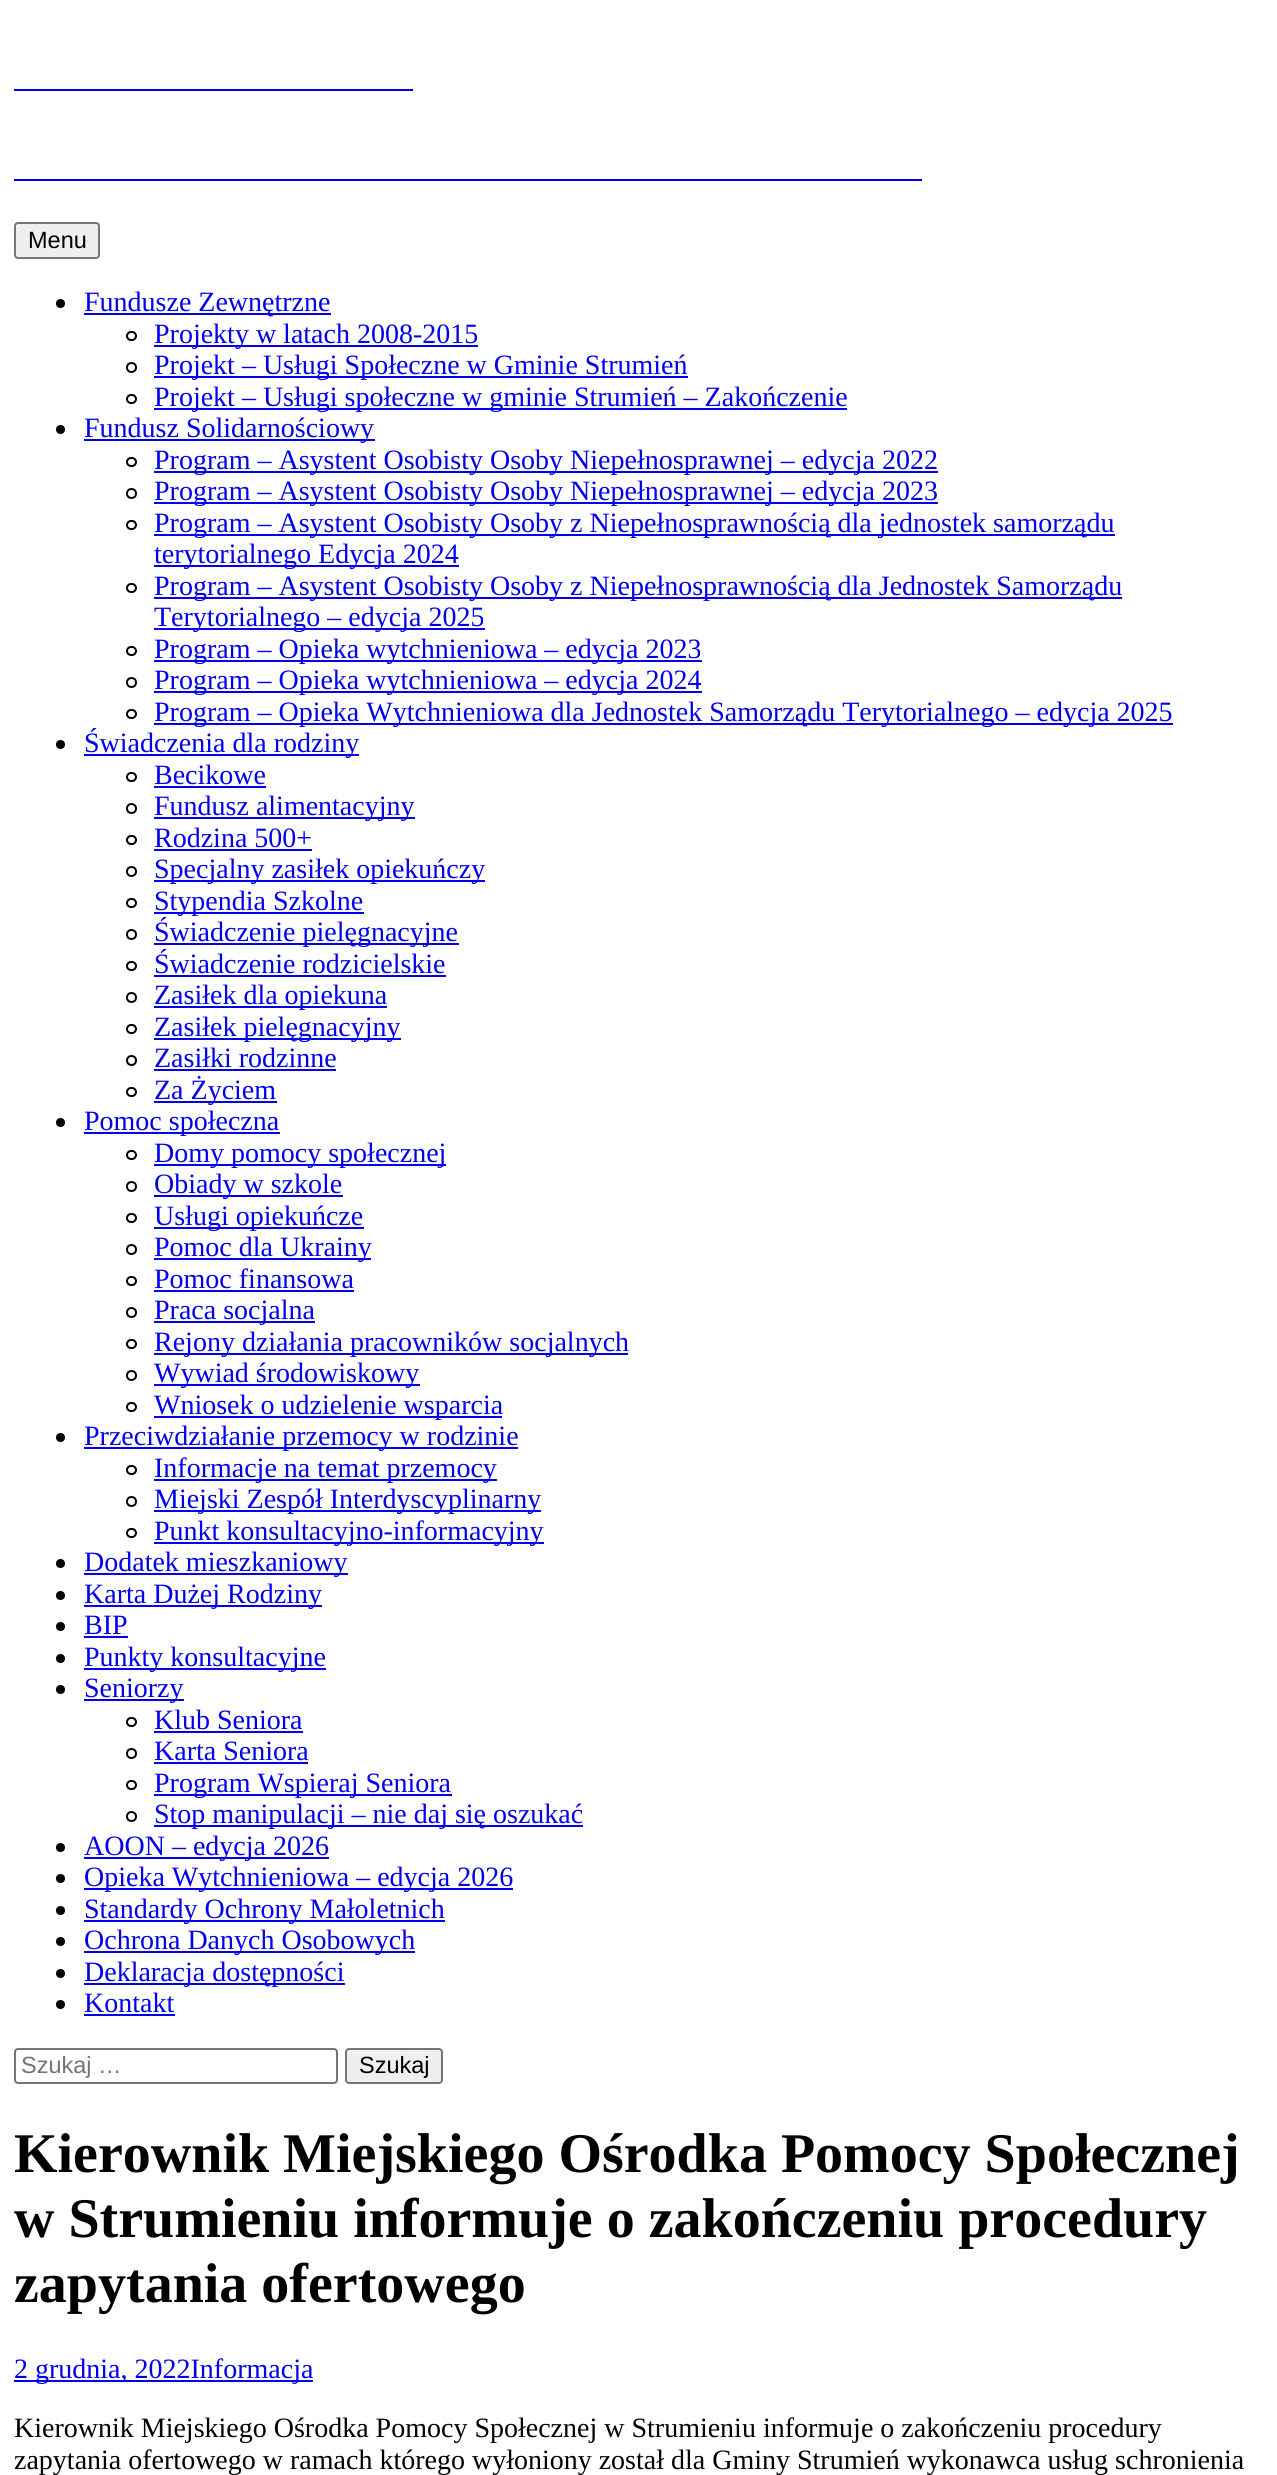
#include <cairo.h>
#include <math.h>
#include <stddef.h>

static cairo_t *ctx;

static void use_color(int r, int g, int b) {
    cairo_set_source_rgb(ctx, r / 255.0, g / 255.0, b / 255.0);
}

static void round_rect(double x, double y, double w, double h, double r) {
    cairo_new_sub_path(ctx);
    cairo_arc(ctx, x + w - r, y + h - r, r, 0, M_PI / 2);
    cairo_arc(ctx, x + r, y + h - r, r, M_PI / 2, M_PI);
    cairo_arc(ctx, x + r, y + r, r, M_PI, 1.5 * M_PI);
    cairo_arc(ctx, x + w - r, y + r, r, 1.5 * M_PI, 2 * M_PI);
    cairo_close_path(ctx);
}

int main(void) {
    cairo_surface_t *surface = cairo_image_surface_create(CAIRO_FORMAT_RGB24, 1277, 2475);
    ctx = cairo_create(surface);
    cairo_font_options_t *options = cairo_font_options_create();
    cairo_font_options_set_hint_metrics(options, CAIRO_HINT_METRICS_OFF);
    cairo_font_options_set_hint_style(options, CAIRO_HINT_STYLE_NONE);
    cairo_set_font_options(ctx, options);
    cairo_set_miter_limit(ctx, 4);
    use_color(255, 255, 255);
    cairo_paint(ctx);
    use_color(0, 0, 238);
    cairo_rectangle(ctx, 14, 89, 399, 2);
    cairo_fill(ctx);
    cairo_rectangle(ctx, 14, 179, 908, 2);
    cairo_fill(ctx);
    use_color(239, 239, 239);
    round_rect(15, 223, 84, 35, 3);
    cairo_fill_preserve(ctx);
    use_color(118, 118, 118);
    cairo_stroke(ctx);
    cairo_select_font_face(ctx, "Liberation Sans", CAIRO_FONT_SLANT_NORMAL, CAIRO_FONT_WEIGHT_NORMAL);
    cairo_set_font_size(ctx, 23.5);
    use_color(0, 0, 0);
    cairo_move_to(ctx, 28, 248);
    cairo_show_text(ctx, "Menu");
    cairo_new_path(ctx);
    cairo_arc(ctx, 60.5, 303.5, 4.5, 0, 2 * M_PI);
    cairo_fill(ctx);
    use_color(0, 0, 238);
    cairo_rectangle(ctx, 84, 313, 247, 2);
    cairo_fill(ctx);
    cairo_select_font_face(ctx, "Liberation Serif", CAIRO_FONT_SLANT_NORMAL, CAIRO_FONT_WEIGHT_NORMAL);
    cairo_set_font_size(ctx, 28);
    cairo_move_to(ctx, 84, 311);
    cairo_show_text(ctx, "Fundusze Zewnętrzne");
    round_rect(127, 332, 9, 8, 4);
    use_color(0, 0, 0);
    cairo_stroke(ctx);
    use_color(0, 0, 238);
    cairo_rectangle(ctx, 154, 345, 324, 2);
    cairo_fill(ctx);
    cairo_move_to(ctx, 154, 343);
    cairo_show_text(ctx, "Projekty w latach 2008-2015");
    cairo_new_path(ctx);
    cairo_arc(ctx, 131.5, 367.5, 4.5, 0, 2 * M_PI);
    use_color(0, 0, 0);
    cairo_stroke(ctx);
    use_color(0, 0, 238);
    cairo_rectangle(ctx, 154, 376, 534, 2);
    cairo_fill(ctx);
    cairo_move_to(ctx, 154, 374);
    cairo_show_text(ctx, "Projekt – Usługi Społeczne w Gminie Strumień");
    round_rect(127, 395, 9, 8, 4);
    use_color(0, 0, 0);
    cairo_stroke(ctx);
    use_color(0, 0, 238);
    cairo_rectangle(ctx, 154, 408, 693, 2);
    cairo_fill(ctx);
    cairo_move_to(ctx, 154, 406);
    cairo_show_text(ctx, "Projekt – Usługi społeczne w gminie Strumień – Zakończenie");
    use_color(0, 0, 0);
    cairo_new_path(ctx);
    cairo_arc(ctx, 60.5, 429.5, 4.5, 0, 2 * M_PI);
    cairo_fill(ctx);
    use_color(0, 0, 238);
    cairo_rectangle(ctx, 84, 439, 291, 2);
    cairo_fill(ctx);
    cairo_move_to(ctx, 84, 437);
    cairo_show_text(ctx, "Fundusz Solidarnościowy");
    round_rect(127, 458, 9, 8, 4);
    use_color(0, 0, 0);
    cairo_stroke(ctx);
    use_color(0, 0, 238);
    cairo_rectangle(ctx, 154, 471, 784, 2);
    cairo_fill(ctx);
    cairo_move_to(ctx, 154, 469);
    cairo_show_text(ctx, "Program – Asystent Osobisty Osoby Niepełnosprawnej – edycja 2022");
    cairo_new_path(ctx);
    cairo_arc(ctx, 131.5, 493.5, 4.5, 0, 2 * M_PI);
    use_color(0, 0, 0);
    cairo_stroke(ctx);
    use_color(0, 0, 238);
    cairo_rectangle(ctx, 154, 502, 784, 2);
    cairo_fill(ctx);
    cairo_move_to(ctx, 154, 500);
    cairo_show_text(ctx, "Program – Asystent Osobisty Osoby Niepełnosprawnej – edycja 2023");
    round_rect(127, 521, 9, 8, 4);
    use_color(0, 0, 0);
    cairo_stroke(ctx);
    use_color(0, 0, 238);
    cairo_rectangle(ctx, 154, 534, 961, 2);
    cairo_fill(ctx);
    cairo_move_to(ctx, 154, 532);
    cairo_show_text(ctx, "Program – Asystent Osobisty Osoby z Niepełnosprawnością dla jednostek samorządu");
    cairo_rectangle(ctx, 154, 565, 305, 2);
    cairo_fill(ctx);
    cairo_move_to(ctx, 154, 563);
    cairo_show_text(ctx, "terytorialnego Edycja 2024");
    round_rect(127, 584, 9, 8, 4);
    use_color(0, 0, 0);
    cairo_stroke(ctx);
    use_color(0, 0, 238);
    cairo_rectangle(ctx, 154, 597, 968, 2);
    cairo_fill(ctx);
    cairo_move_to(ctx, 154, 595);
    cairo_show_text(ctx, "Program – Asystent Osobisty Osoby z Niepełnosprawnością dla Jednostek Samorządu");
    cairo_rectangle(ctx, 154, 628, 331, 2);
    cairo_fill(ctx);
    cairo_move_to(ctx, 154, 626);
    cairo_show_text(ctx, "Terytorialnego – edycja 2025");
    round_rect(127, 647, 9, 8, 4);
    use_color(0, 0, 0);
    cairo_stroke(ctx);
    use_color(0, 0, 238);
    cairo_rectangle(ctx, 154, 660, 548, 2);
    cairo_fill(ctx);
    cairo_move_to(ctx, 154, 658);
    cairo_show_text(ctx, "Program – Opieka wytchnieniowa – edycja 2023");
    cairo_new_path(ctx);
    cairo_arc(ctx, 131.5, 682.5, 4.5, 0, 2 * M_PI);
    use_color(0, 0, 0);
    cairo_stroke(ctx);
    use_color(0, 0, 238);
    cairo_rectangle(ctx, 154, 691, 548, 2);
    cairo_fill(ctx);
    cairo_move_to(ctx, 154, 689);
    cairo_show_text(ctx, "Program – Opieka wytchnieniowa – edycja 2024");
    round_rect(127, 710, 9, 8, 4);
    use_color(0, 0, 0);
    cairo_stroke(ctx);
    use_color(0, 0, 238);
    cairo_rectangle(ctx, 154, 723, 1019, 2);
    cairo_fill(ctx);
    cairo_move_to(ctx, 154, 721);
    cairo_show_text(ctx, "Program – Opieka Wytchnieniowa dla Jednostek Samorządu Terytorialnego – edycja 2025");
    use_color(0, 0, 0);
    cairo_new_path(ctx);
    cairo_arc(ctx, 60.5, 744.5, 4.5, 0, 2 * M_PI);
    cairo_fill(ctx);
    use_color(0, 0, 238);
    cairo_rectangle(ctx, 84, 754, 275, 2);
    cairo_fill(ctx);
    cairo_move_to(ctx, 84, 752);
    cairo_show_text(ctx, "Świadczenia dla rodziny");
    round_rect(127, 773, 9, 8, 4);
    use_color(0, 0, 0);
    cairo_stroke(ctx);
    use_color(0, 0, 238);
    cairo_move_to(ctx, 154, 784);
    cairo_show_text(ctx, "Becikowe");
    cairo_rectangle(ctx, 154, 786, 112, 2);
    cairo_fill(ctx);
    cairo_arc(ctx, 131.5, 808.5, 4.5, 0, 2 * M_PI);
    use_color(0, 0, 0);
    cairo_stroke(ctx);
    use_color(0, 0, 238);
    cairo_rectangle(ctx, 154, 817, 261, 2);
    cairo_fill(ctx);
    cairo_move_to(ctx, 154, 815);
    cairo_show_text(ctx, "Fundusz alimentacyjny");
    round_rect(127, 836, 9, 8, 4);
    use_color(0, 0, 0);
    cairo_stroke(ctx);
    use_color(0, 0, 238);
    cairo_move_to(ctx, 154, 847);
    cairo_show_text(ctx, "Rodzina 500+");
    cairo_rectangle(ctx, 154, 849, 158, 2);
    cairo_fill(ctx);
    cairo_arc(ctx, 131.5, 871.5, 4.5, 0, 2 * M_PI);
    use_color(0, 0, 0);
    cairo_stroke(ctx);
    use_color(0, 0, 238);
    cairo_rectangle(ctx, 154, 880, 331, 2);
    cairo_fill(ctx);
    cairo_move_to(ctx, 154, 878);
    cairo_show_text(ctx, "Specjalny zasiłek opiekuńczy");
    round_rect(127, 899, 9, 8, 4);
    use_color(0, 0, 0);
    cairo_stroke(ctx);
    use_color(0, 0, 238);
    cairo_rectangle(ctx, 154, 912, 210, 2);
    cairo_fill(ctx);
    cairo_move_to(ctx, 154, 910);
    cairo_show_text(ctx, "Stypendia Szkolne");
    cairo_new_path(ctx);
    cairo_arc(ctx, 131.5, 934.5, 4.5, 0, 2 * M_PI);
    use_color(0, 0, 0);
    cairo_stroke(ctx);
    use_color(0, 0, 238);
    cairo_rectangle(ctx, 154, 943, 305, 2);
    cairo_fill(ctx);
    cairo_move_to(ctx, 154, 941);
    cairo_show_text(ctx, "Świadczenie pielęgnacyjne");
    round_rect(127, 962, 9, 8, 4);
    use_color(0, 0, 0);
    cairo_stroke(ctx);
    use_color(0, 0, 238);
    cairo_move_to(ctx, 154, 973);
    cairo_show_text(ctx, "Świadczenie rodzicielskie");
    cairo_rectangle(ctx, 154, 975, 292, 2);
    cairo_fill(ctx);
    cairo_arc(ctx, 131.5, 997.5, 4.5, 0, 2 * M_PI);
    use_color(0, 0, 0);
    cairo_stroke(ctx);
    use_color(0, 0, 238);
    cairo_rectangle(ctx, 154, 1006, 233, 2);
    cairo_fill(ctx);
    cairo_move_to(ctx, 154, 1004);
    cairo_show_text(ctx, "Zasiłek dla opiekuna");
    round_rect(127, 1025, 9, 8, 4);
    use_color(0, 0, 0);
    cairo_stroke(ctx);
    use_color(0, 0, 238);
    cairo_rectangle(ctx, 154, 1038, 247, 2);
    cairo_fill(ctx);
    cairo_move_to(ctx, 154, 1036);
    cairo_show_text(ctx, "Zasiłek pielęgnacyjny");
    cairo_new_path(ctx);
    cairo_arc(ctx, 131.5, 1060.5, 4.5, 0, 2 * M_PI);
    use_color(0, 0, 0);
    cairo_stroke(ctx);
    use_color(0, 0, 238);
    cairo_move_to(ctx, 154, 1067);
    cairo_show_text(ctx, "Zasiłki rodzinne");
    cairo_rectangle(ctx, 154, 1069, 182, 2);
    cairo_fill(ctx);
    round_rect(127, 1088, 9, 8, 4);
    use_color(0, 0, 0);
    cairo_stroke(ctx);
    use_color(0, 0, 238);
    cairo_rectangle(ctx, 154, 1101, 123, 2);
    cairo_fill(ctx);
    cairo_move_to(ctx, 154, 1099);
    cairo_show_text(ctx, "Za Życiem");
    use_color(0, 0, 0);
    cairo_new_path(ctx);
    cairo_arc(ctx, 60.5, 1122.5, 4.5, 0, 2 * M_PI);
    cairo_fill(ctx);
    use_color(0, 0, 238);
    cairo_rectangle(ctx, 84, 1132, 196, 2);
    cairo_fill(ctx);
    cairo_move_to(ctx, 84, 1130);
    cairo_show_text(ctx, "Pomoc społeczna");
    round_rect(127, 1151, 9, 8, 4);
    use_color(0, 0, 0);
    cairo_stroke(ctx);
    use_color(0, 0, 238);
    cairo_rectangle(ctx, 154, 1164, 292, 2);
    cairo_fill(ctx);
    cairo_move_to(ctx, 154, 1162);
    cairo_show_text(ctx, "Domy pomocy społecznej");
    cairo_new_path(ctx);
    cairo_arc(ctx, 131.5, 1186.5, 4.5, 0, 2 * M_PI);
    use_color(0, 0, 0);
    cairo_stroke(ctx);
    use_color(0, 0, 238);
    cairo_rectangle(ctx, 154, 1195, 189, 2);
    cairo_fill(ctx);
    cairo_move_to(ctx, 154, 1193);
    cairo_show_text(ctx, "Obiady w szkole");
    round_rect(127, 1214, 9, 8, 4);
    use_color(0, 0, 0);
    cairo_stroke(ctx);
    use_color(0, 0, 238);
    cairo_rectangle(ctx, 154, 1227, 210, 2);
    cairo_fill(ctx);
    cairo_move_to(ctx, 154, 1225);
    cairo_show_text(ctx, "Usługi opiekuńcze");
    cairo_new_path(ctx);
    cairo_arc(ctx, 131.5, 1249.5, 4.5, 0, 2 * M_PI);
    use_color(0, 0, 0);
    cairo_stroke(ctx);
    use_color(0, 0, 238);
    cairo_rectangle(ctx, 154, 1258, 217, 2);
    cairo_fill(ctx);
    cairo_move_to(ctx, 154, 1256);
    cairo_show_text(ctx, "Pomoc dla Ukrainy");
    round_rect(127, 1277, 9, 8, 4);
    use_color(0, 0, 0);
    cairo_stroke(ctx);
    use_color(0, 0, 238);
    cairo_move_to(ctx, 154, 1288);
    cairo_show_text(ctx, "Pomoc finansowa");
    cairo_rectangle(ctx, 154, 1290, 200, 2);
    cairo_fill(ctx);
    cairo_arc(ctx, 131.5, 1312.5, 4.5, 0, 2 * M_PI);
    use_color(0, 0, 0);
    cairo_stroke(ctx);
    use_color(0, 0, 238);
    cairo_rectangle(ctx, 154, 1321, 161, 2);
    cairo_fill(ctx);
    cairo_move_to(ctx, 154, 1319);
    cairo_show_text(ctx, "Praca socjalna");
    round_rect(127, 1340, 9, 8, 4);
    use_color(0, 0, 0);
    cairo_stroke(ctx);
    use_color(0, 0, 238);
    cairo_rectangle(ctx, 154, 1353, 474, 2);
    cairo_fill(ctx);
    cairo_move_to(ctx, 154, 1351);
    cairo_show_text(ctx, "Rejony działania pracowników socjalnych");
    cairo_new_path(ctx);
    cairo_arc(ctx, 131.5, 1375.5, 4.5, 0, 2 * M_PI);
    use_color(0, 0, 0);
    cairo_stroke(ctx);
    use_color(0, 0, 238);
    cairo_rectangle(ctx, 154, 1384, 266, 2);
    cairo_fill(ctx);
    cairo_move_to(ctx, 154, 1382);
    cairo_show_text(ctx, "Wywiad środowiskowy");
    round_rect(127, 1403, 9, 8, 4);
    use_color(0, 0, 0);
    cairo_stroke(ctx);
    use_color(0, 0, 238);
    cairo_rectangle(ctx, 154, 1416, 348, 2);
    cairo_fill(ctx);
    cairo_move_to(ctx, 154, 1414);
    cairo_show_text(ctx, "Wniosek o udzielenie wsparcia");
    use_color(0, 0, 0);
    cairo_new_path(ctx);
    cairo_arc(ctx, 60.5, 1437.5, 4.5, 0, 2 * M_PI);
    cairo_fill(ctx);
    use_color(0, 0, 238);
    cairo_rectangle(ctx, 84, 1447, 434, 2);
    cairo_fill(ctx);
    cairo_move_to(ctx, 84, 1445);
    cairo_show_text(ctx, "Przeciwdziałanie przemocy w rodzinie");
    round_rect(127, 1466, 9, 8, 4);
    use_color(0, 0, 0);
    cairo_stroke(ctx);
    use_color(0, 0, 238);
    cairo_rectangle(ctx, 154, 1479, 343, 2);
    cairo_fill(ctx);
    cairo_move_to(ctx, 154, 1477);
    cairo_show_text(ctx, "Informacje na temat przemocy");
    cairo_new_path(ctx);
    cairo_arc(ctx, 131.5, 1501.5, 4.5, 0, 2 * M_PI);
    use_color(0, 0, 0);
    cairo_stroke(ctx);
    use_color(0, 0, 238);
    cairo_rectangle(ctx, 154, 1510, 387, 2);
    cairo_fill(ctx);
    cairo_move_to(ctx, 154, 1508);
    cairo_show_text(ctx, "Miejski Zespół Interdyscyplinarny");
    round_rect(127, 1529, 9, 8, 4);
    use_color(0, 0, 0);
    cairo_stroke(ctx);
    use_color(0, 0, 238);
    cairo_rectangle(ctx, 154, 1542, 390, 2);
    cairo_fill(ctx);
    cairo_move_to(ctx, 154, 1540);
    cairo_show_text(ctx, "Punkt konsultacyjno-informacyjny");
    use_color(0, 0, 0);
    cairo_new_path(ctx);
    cairo_arc(ctx, 60.5, 1563.5, 4.5, 0, 2 * M_PI);
    cairo_fill(ctx);
    use_color(0, 0, 238);
    cairo_rectangle(ctx, 84, 1573, 264, 2);
    cairo_fill(ctx);
    cairo_move_to(ctx, 84, 1571);
    cairo_show_text(ctx, "Dodatek mieszkaniowy");
    use_color(0, 0, 0);
    cairo_new_path(ctx);
    cairo_arc(ctx, 60.5, 1595.5, 4.5, 0, 2 * M_PI);
    cairo_fill(ctx);
    use_color(0, 0, 238);
    cairo_rectangle(ctx, 84, 1605, 238, 2);
    cairo_fill(ctx);
    cairo_move_to(ctx, 84, 1603);
    cairo_show_text(ctx, "Karta Dużej Rodziny");
    use_color(0, 0, 0);
    cairo_new_path(ctx);
    cairo_arc(ctx, 60.5, 1626.5, 4.5, 0, 2 * M_PI);
    cairo_fill(ctx);
    use_color(0, 0, 238);
    cairo_move_to(ctx, 84, 1634);
    cairo_show_text(ctx, "BIP");
    cairo_rectangle(ctx, 84, 1636, 44, 2);
    cairo_fill(ctx);
    use_color(0, 0, 0);
    cairo_arc(ctx, 60.5, 1658.5, 4.5, 0, 2 * M_PI);
    cairo_fill(ctx);
    use_color(0, 0, 238);
    cairo_rectangle(ctx, 84, 1668, 242, 2);
    cairo_fill(ctx);
    cairo_move_to(ctx, 84, 1666);
    cairo_show_text(ctx, "Punkty konsultacyjne");
    use_color(0, 0, 0);
    cairo_new_path(ctx);
    cairo_arc(ctx, 60.5, 1689.5, 4.5, 0, 2 * M_PI);
    cairo_fill(ctx);
    use_color(0, 0, 238);
    cairo_rectangle(ctx, 84, 1699, 100, 2);
    cairo_fill(ctx);
    cairo_move_to(ctx, 84, 1697);
    cairo_show_text(ctx, "Seniorzy");
    round_rect(127, 1718, 9, 8, 4);
    use_color(0, 0, 0);
    cairo_stroke(ctx);
    use_color(0, 0, 238);
    cairo_move_to(ctx, 154, 1729);
    cairo_show_text(ctx, "Klub Seniora");
    cairo_rectangle(ctx, 154, 1731, 149, 2);
    cairo_fill(ctx);
    cairo_arc(ctx, 131.5, 1753.5, 4.5, 0, 2 * M_PI);
    use_color(0, 0, 0);
    cairo_stroke(ctx);
    use_color(0, 0, 238);
    cairo_move_to(ctx, 154, 1760);
    cairo_show_text(ctx, "Karta Seniora");
    cairo_rectangle(ctx, 154, 1762, 154, 2);
    cairo_fill(ctx);
    round_rect(127, 1781, 9, 8, 4);
    use_color(0, 0, 0);
    cairo_stroke(ctx);
    use_color(0, 0, 238);
    cairo_rectangle(ctx, 154, 1794, 298, 2);
    cairo_fill(ctx);
    cairo_move_to(ctx, 154, 1792);
    cairo_show_text(ctx, "Program Wspieraj Seniora");
    cairo_new_path(ctx);
    cairo_arc(ctx, 131.5, 1816.5, 4.5, 0, 2 * M_PI);
    use_color(0, 0, 0);
    cairo_stroke(ctx);
    use_color(0, 0, 238);
    cairo_rectangle(ctx, 154, 1825, 429, 2);
    cairo_fill(ctx);
    cairo_move_to(ctx, 154, 1823);
    cairo_show_text(ctx, "Stop manipulacji – nie daj się oszukać");
    use_color(0, 0, 0);
    cairo_new_path(ctx);
    cairo_arc(ctx, 60.5, 1847.5, 4.5, 0, 2 * M_PI);
    cairo_fill(ctx);
    use_color(0, 0, 238);
    cairo_rectangle(ctx, 84, 1857, 245, 2);
    cairo_fill(ctx);
    cairo_move_to(ctx, 84, 1855);
    cairo_show_text(ctx, "AOON – edycja 2026");
    use_color(0, 0, 0);
    cairo_new_path(ctx);
    cairo_arc(ctx, 60.5, 1878.5, 4.5, 0, 2 * M_PI);
    cairo_fill(ctx);
    use_color(0, 0, 238);
    cairo_rectangle(ctx, 84, 1888, 429, 2);
    cairo_fill(ctx);
    cairo_move_to(ctx, 84, 1886);
    cairo_show_text(ctx, "Opieka Wytchnieniowa – edycja 2026");
    use_color(0, 0, 0);
    cairo_new_path(ctx);
    cairo_arc(ctx, 60.5, 1910.5, 4.5, 0, 2 * M_PI);
    cairo_fill(ctx);
    use_color(0, 0, 238);
    cairo_rectangle(ctx, 84, 1920, 361, 2);
    cairo_fill(ctx);
    cairo_move_to(ctx, 84, 1918);
    cairo_show_text(ctx, "Standardy Ochrony Małoletnich");
    use_color(0, 0, 0);
    cairo_new_path(ctx);
    cairo_arc(ctx, 60.5, 1941.5, 4.5, 0, 2 * M_PI);
    cairo_fill(ctx);
    use_color(0, 0, 238);
    cairo_rectangle(ctx, 84, 1951, 331, 2);
    cairo_fill(ctx);
    cairo_move_to(ctx, 84, 1949);
    cairo_show_text(ctx, "Ochrona Danych Osobowych");
    use_color(0, 0, 0);
    cairo_new_path(ctx);
    cairo_arc(ctx, 60.5, 1973.5, 4.5, 0, 2 * M_PI);
    cairo_fill(ctx);
    use_color(0, 0, 238);
    cairo_rectangle(ctx, 84, 1983, 261, 2);
    cairo_fill(ctx);
    cairo_move_to(ctx, 84, 1981);
    cairo_show_text(ctx, "Deklaracja dostępności");
    use_color(0, 0, 0);
    cairo_new_path(ctx);
    cairo_arc(ctx, 60.5, 2004.5, 4.5, 0, 2 * M_PI);
    cairo_fill(ctx);
    use_color(0, 0, 238);
    cairo_move_to(ctx, 84, 2012);
    cairo_show_text(ctx, "Kontakt");
    cairo_rectangle(ctx, 84, 2014, 91, 2);
    cairo_fill(ctx);
    round_rect(15, 2049, 322, 34, 3);
    use_color(118, 118, 118);
    cairo_stroke(ctx);
    cairo_select_font_face(ctx, "Liberation Sans", CAIRO_FONT_SLANT_NORMAL, CAIRO_FONT_WEIGHT_NORMAL);
    cairo_set_font_size(ctx, 23.5);
    use_color(117, 117, 117);
    cairo_move_to(ctx, 21, 2073);
    cairo_show_text(ctx, "Szukaj …");
    use_color(239, 239, 239);
    round_rect(346, 2049, 96, 34, 3);
    cairo_fill_preserve(ctx);
    use_color(118, 118, 118);
    cairo_stroke(ctx);
    use_color(0, 0, 0);
    cairo_move_to(ctx, 359, 2073);
    cairo_show_text(ctx, "Szukaj");
    cairo_select_font_face(ctx, "Liberation Serif", CAIRO_FONT_SLANT_NORMAL, CAIRO_FONT_WEIGHT_BOLD);
    cairo_set_font_size(ctx, 56);
    cairo_move_to(ctx, 14, 2172);
    cairo_show_text(ctx, "Kierownik Miejskiego Ośrodka Pomocy Społecznej");
    cairo_move_to(ctx, 14, 2237);
    cairo_show_text(ctx, "w Strumieniu informuje o zakończeniu procedury");
    cairo_move_to(ctx, 14, 2302);
    cairo_show_text(ctx, "zapytania ofertowego");
    use_color(0, 0, 238);
    cairo_rectangle(ctx, 14, 2380, 299, 2);
    cairo_fill(ctx);
    cairo_select_font_face(ctx, "Liberation Serif", CAIRO_FONT_SLANT_NORMAL, CAIRO_FONT_WEIGHT_NORMAL);
    cairo_set_font_size(ctx, 28);
    cairo_move_to(ctx, 14, 2378);
    cairo_show_text(ctx, "2 grudnia, 2022Informacja");
    use_color(0, 0, 0);
    cairo_move_to(ctx, 14, 2437);
    cairo_show_text(ctx, "Kierownik Miejskiego Ośrodka Pomocy Społecznej w Strumieniu informuje o zakończeniu procedury");
    cairo_move_to(ctx, 14, 2469);
    cairo_show_text(ctx, "zapytania ofertowego w ramach którego wyłoniony został dla Gminy Strumień wykonawca usług schronienia");
    cairo_surface_write_to_png(surface, "result.png");
    cairo_font_options_destroy(options);
    cairo_destroy(ctx);
    cairo_surface_destroy(surface);
    return 0;
}
